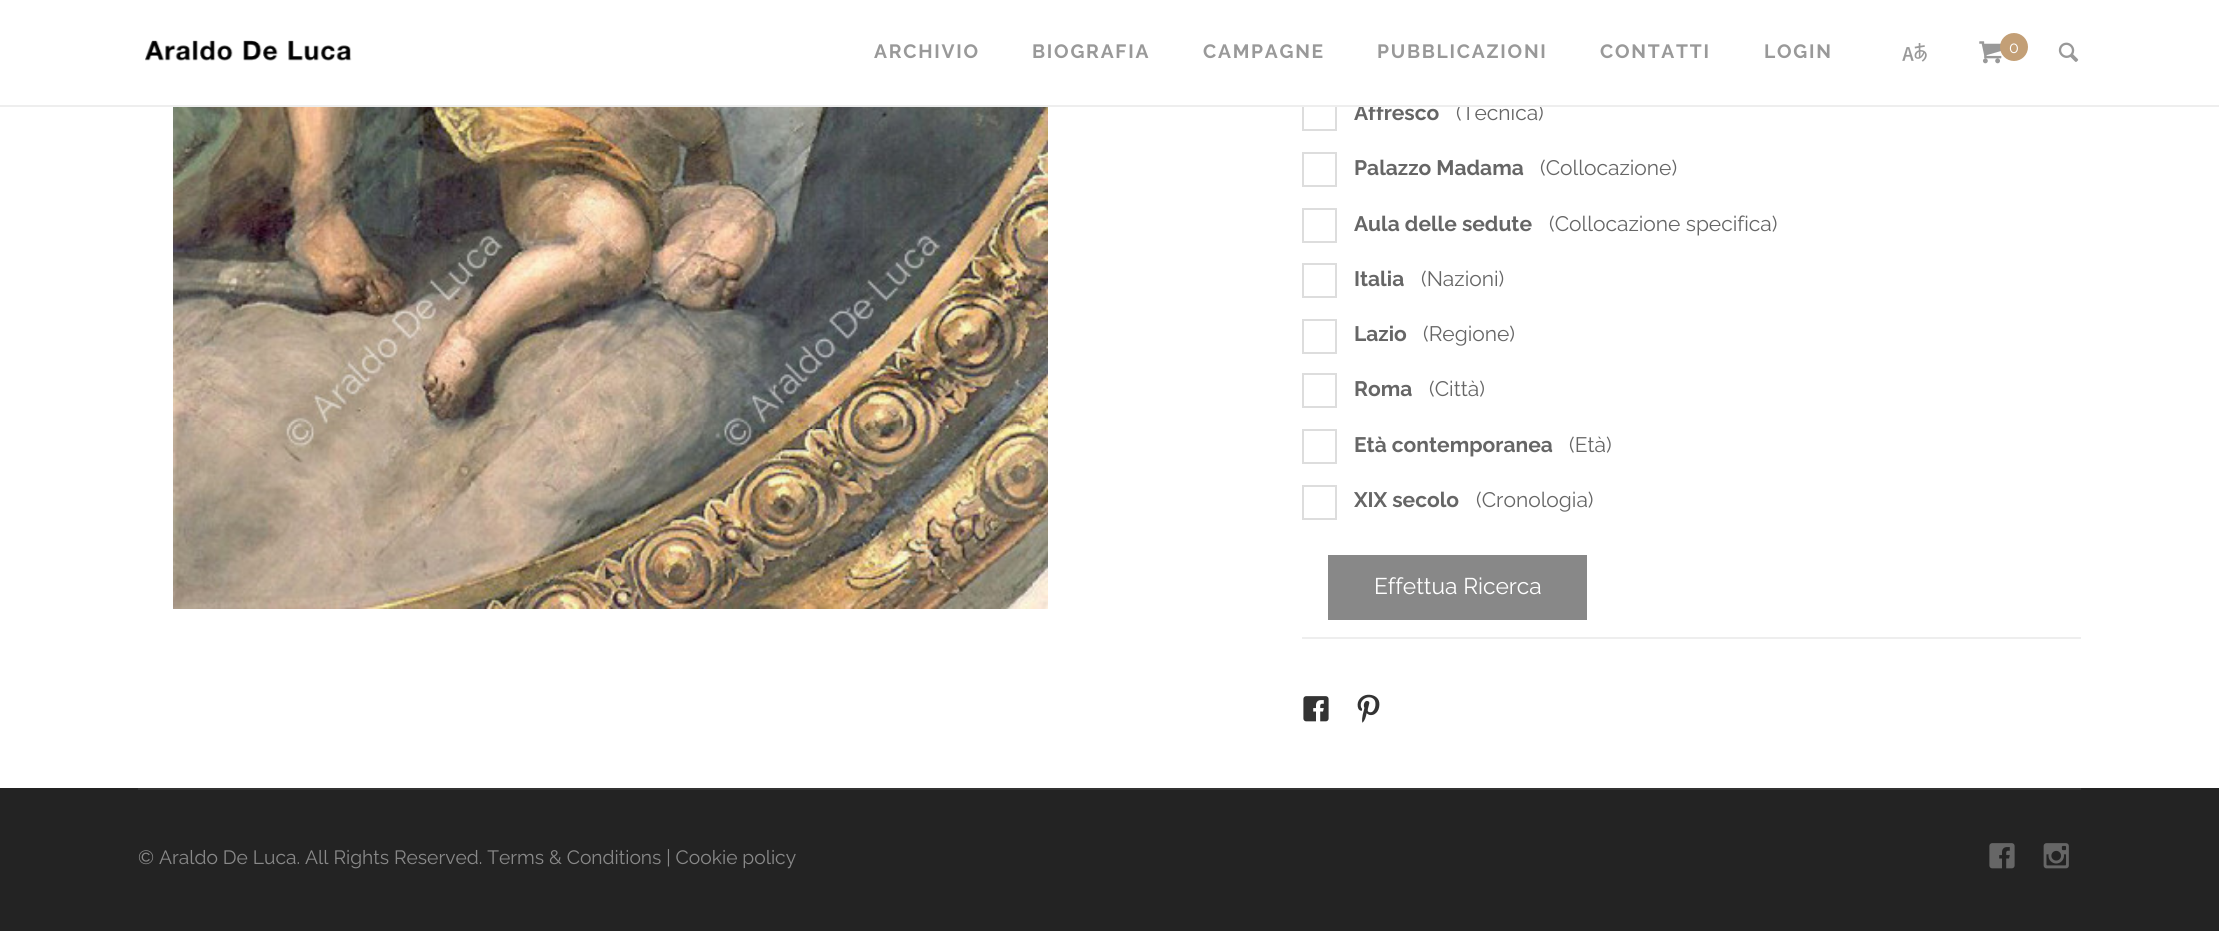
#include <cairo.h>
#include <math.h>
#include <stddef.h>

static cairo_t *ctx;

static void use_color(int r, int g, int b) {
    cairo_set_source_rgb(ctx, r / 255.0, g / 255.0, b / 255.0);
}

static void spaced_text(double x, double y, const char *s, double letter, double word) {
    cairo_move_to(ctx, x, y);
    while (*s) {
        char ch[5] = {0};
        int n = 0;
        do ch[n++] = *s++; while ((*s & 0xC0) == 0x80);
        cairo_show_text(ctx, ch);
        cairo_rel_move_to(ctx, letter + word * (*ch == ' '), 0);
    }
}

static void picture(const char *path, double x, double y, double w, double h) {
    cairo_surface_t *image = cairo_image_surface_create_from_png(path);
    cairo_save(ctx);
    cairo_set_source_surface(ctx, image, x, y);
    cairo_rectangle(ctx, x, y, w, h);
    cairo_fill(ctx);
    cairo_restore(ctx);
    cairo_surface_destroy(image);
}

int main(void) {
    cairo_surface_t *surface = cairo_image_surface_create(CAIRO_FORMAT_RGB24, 2219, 931);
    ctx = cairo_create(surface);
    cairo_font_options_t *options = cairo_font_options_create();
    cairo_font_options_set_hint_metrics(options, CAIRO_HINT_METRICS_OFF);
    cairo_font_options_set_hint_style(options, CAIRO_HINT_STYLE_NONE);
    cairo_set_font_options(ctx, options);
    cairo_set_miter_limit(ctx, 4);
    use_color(255, 255, 255);
    cairo_paint(ctx);
    cairo_rectangle(ctx, 1303, 97, 33, 33);
    use_color(221, 221, 221);
    cairo_stroke(ctx);
    cairo_select_font_face(ctx, "Raleway", CAIRO_FONT_SLANT_NORMAL, CAIRO_FONT_WEIGHT_BOLD);
    cairo_set_font_size(ctx, 21);
    use_color(102, 102, 102);
    cairo_move_to(ctx, 1354, 120);
    cairo_show_text(ctx, "Affresco");
    cairo_select_font_face(ctx, "Raleway", CAIRO_FONT_SLANT_NORMAL, CAIRO_FONT_WEIGHT_NORMAL);
    cairo_move_to(ctx, 1456, 120);
    cairo_show_text(ctx, "(Tecnica)");
    use_color(255, 255, 255);
    cairo_rectangle(ctx, 1302, 96, 238, 9);
    cairo_fill(ctx);
    use_color(238, 238, 238);
    cairo_rectangle(ctx, 0, 105, 2219, 2);
    cairo_fill(ctx);
    picture("img1.png", 145, 40, 207, 21);
    cairo_select_font_face(ctx, "Raleway", CAIRO_FONT_SLANT_NORMAL, CAIRO_FONT_WEIGHT_BOLD);
    cairo_set_font_size(ctx, 19.25);
    use_color(153, 153, 153);
    spaced_text(874, 58, "ARCHIVIO", 1.75, 0);
    spaced_text(1032, 58, "BIOGRAFIA", 1.75, 0);
    spaced_text(1203, 58, "CAMPAGNE", 1.75, 0);
    spaced_text(1377, 58, "PUBBLICAZIONI", 1.75, 0);
    spaced_text(1600, 58, "CONTATTI", 1.75, 0);
    spaced_text(1764, 58, "LOGIN", 1.75, 0);
    picture("img2.png", 1902, 43, 25, 19);
    picture("img3.png", 1979, 41, 23, 23);
    use_color(195, 159, 118);
    cairo_arc(ctx, 2014, 47, 14, 0, 2 * M_PI);
    cairo_fill(ctx);
    cairo_select_font_face(ctx, "Raleway", CAIRO_FONT_SLANT_NORMAL, CAIRO_FONT_WEIGHT_NORMAL);
    cairo_set_font_size(ctx, 16);
    use_color(255, 255, 255);
    cairo_move_to(ctx, 2009, 53);
    cairo_show_text(ctx, "0");
    picture("img4.png", 2058, 42, 21, 20);
    picture("img5.png", 173, 107, 875, 502);
    cairo_rectangle(ctx, 1303, 153, 33, 33);
    use_color(221, 221, 221);
    cairo_stroke(ctx);
    cairo_select_font_face(ctx, "Raleway", CAIRO_FONT_SLANT_NORMAL, CAIRO_FONT_WEIGHT_BOLD);
    cairo_set_font_size(ctx, 21);
    use_color(102, 102, 102);
    cairo_move_to(ctx, 1354, 175);
    cairo_show_text(ctx, "Palazzo Madama");
    cairo_select_font_face(ctx, "Raleway", CAIRO_FONT_SLANT_NORMAL, CAIRO_FONT_WEIGHT_NORMAL);
    cairo_move_to(ctx, 1540, 175);
    cairo_show_text(ctx, "(Collocazione)");
    cairo_rectangle(ctx, 1303, 209, 33, 33);
    use_color(221, 221, 221);
    cairo_stroke(ctx);
    cairo_select_font_face(ctx, "Raleway", CAIRO_FONT_SLANT_NORMAL, CAIRO_FONT_WEIGHT_BOLD);
    use_color(102, 102, 102);
    cairo_move_to(ctx, 1354, 231);
    cairo_show_text(ctx, "Aula delle sedute");
    cairo_select_font_face(ctx, "Raleway", CAIRO_FONT_SLANT_NORMAL, CAIRO_FONT_WEIGHT_NORMAL);
    cairo_move_to(ctx, 1549, 231);
    cairo_show_text(ctx, "(Collocazione specifica)");
    cairo_rectangle(ctx, 1303, 264, 33, 33);
    use_color(221, 221, 221);
    cairo_stroke(ctx);
    cairo_select_font_face(ctx, "Raleway", CAIRO_FONT_SLANT_NORMAL, CAIRO_FONT_WEIGHT_BOLD);
    use_color(102, 102, 102);
    cairo_move_to(ctx, 1354, 286);
    cairo_show_text(ctx, "Italia");
    cairo_select_font_face(ctx, "Raleway", CAIRO_FONT_SLANT_NORMAL, CAIRO_FONT_WEIGHT_NORMAL);
    cairo_move_to(ctx, 1421, 286);
    cairo_show_text(ctx, "(Nazioni)");
    cairo_rectangle(ctx, 1303, 320, 33, 33);
    use_color(221, 221, 221);
    cairo_stroke(ctx);
    cairo_select_font_face(ctx, "Raleway", CAIRO_FONT_SLANT_NORMAL, CAIRO_FONT_WEIGHT_BOLD);
    use_color(102, 102, 102);
    cairo_move_to(ctx, 1354, 341);
    cairo_show_text(ctx, "Lazio");
    cairo_select_font_face(ctx, "Raleway", CAIRO_FONT_SLANT_NORMAL, CAIRO_FONT_WEIGHT_NORMAL);
    cairo_move_to(ctx, 1423, 341);
    cairo_show_text(ctx, "(Regione)");
    cairo_rectangle(ctx, 1303, 374, 33, 33);
    use_color(221, 221, 221);
    cairo_stroke(ctx);
    cairo_select_font_face(ctx, "Raleway", CAIRO_FONT_SLANT_NORMAL, CAIRO_FONT_WEIGHT_BOLD);
    use_color(102, 102, 102);
    cairo_move_to(ctx, 1354, 396);
    cairo_show_text(ctx, "Roma");
    cairo_select_font_face(ctx, "Raleway", CAIRO_FONT_SLANT_NORMAL, CAIRO_FONT_WEIGHT_NORMAL);
    cairo_move_to(ctx, 1429, 396);
    cairo_show_text(ctx, "(Città)");
    cairo_rectangle(ctx, 1303, 430, 33, 33);
    use_color(221, 221, 221);
    cairo_stroke(ctx);
    cairo_select_font_face(ctx, "Raleway", CAIRO_FONT_SLANT_NORMAL, CAIRO_FONT_WEIGHT_BOLD);
    use_color(102, 102, 102);
    cairo_move_to(ctx, 1354, 452);
    cairo_show_text(ctx, "Età contemporanea");
    cairo_select_font_face(ctx, "Raleway", CAIRO_FONT_SLANT_NORMAL, CAIRO_FONT_WEIGHT_NORMAL);
    cairo_move_to(ctx, 1569, 452);
    cairo_show_text(ctx, "(Età)");
    cairo_rectangle(ctx, 1303, 486, 33, 33);
    use_color(221, 221, 221);
    cairo_stroke(ctx);
    cairo_select_font_face(ctx, "Raleway", CAIRO_FONT_SLANT_NORMAL, CAIRO_FONT_WEIGHT_BOLD);
    use_color(102, 102, 102);
    cairo_move_to(ctx, 1354, 507);
    cairo_show_text(ctx, "XIX secolo");
    cairo_select_font_face(ctx, "Raleway", CAIRO_FONT_SLANT_NORMAL, CAIRO_FONT_WEIGHT_NORMAL);
    cairo_move_to(ctx, 1476, 507);
    cairo_show_text(ctx, "(Cronologia)");
    use_color(136, 136, 136);
    cairo_rectangle(ctx, 1328, 555, 259, 65);
    cairo_fill(ctx);
    cairo_set_font_size(ctx, 22.75);
    use_color(255, 255, 255);
    cairo_move_to(ctx, 1374, 594);
    cairo_show_text(ctx, "Effettua Ricerca");
    use_color(238, 238, 238);
    cairo_rectangle(ctx, 1302, 637, 779, 2);
    cairo_fill(ctx);
    picture("img6.png", 1303, 696, 26, 26);
    picture("img7.png", 1357, 694, 23, 29);
    use_color(35, 35, 35);
    cairo_rectangle(ctx, 0, 788, 2219, 143);
    cairo_fill(ctx);
    use_color(51, 51, 51);
    cairo_rectangle(ctx, 138, 788, 1943, 2);
    cairo_fill(ctx);
    cairo_set_font_size(ctx, 19.25);
    use_color(137, 137, 137);
    cairo_move_to(ctx, 138, 864);
    cairo_show_text(ctx, "© Araldo De Luca. All Rights Reserved. Terms & Conditions | Cookie policy");
    picture("img8.png", 1989, 843, 26, 26);
    picture("img9.png", 2043, 843, 26, 26);
    cairo_surface_write_to_png(surface, "result.png");
    cairo_font_options_destroy(options);
    cairo_destroy(ctx);
    cairo_surface_destroy(surface);
    return 0;
}
